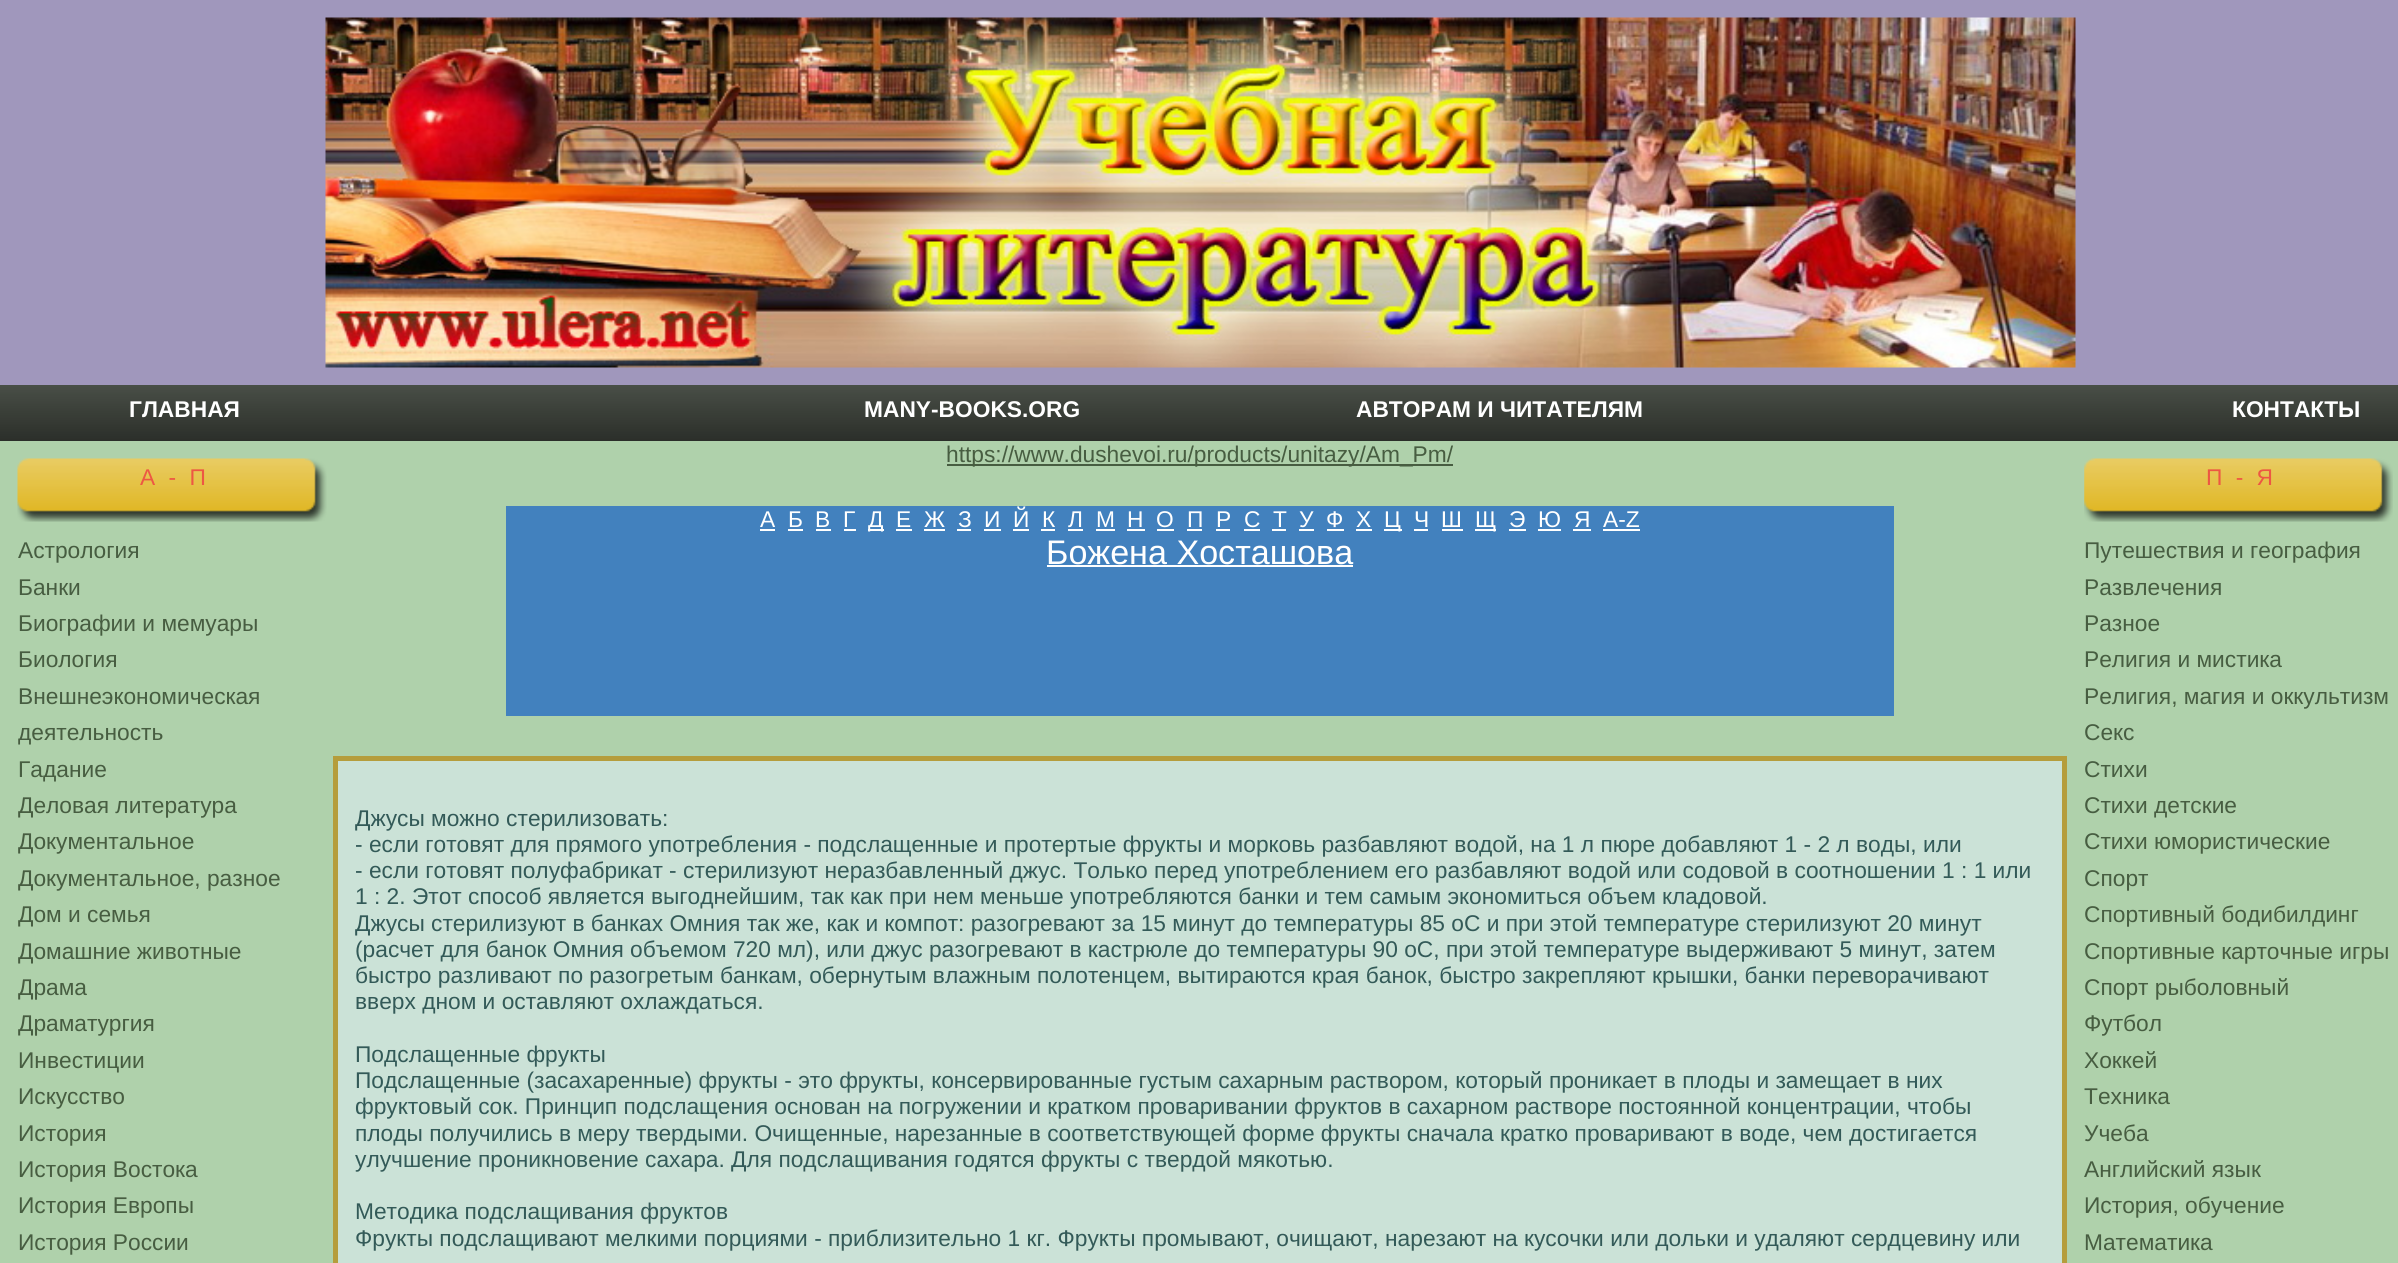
#include <cairo.h>
#include <math.h>
#include <stddef.h>

static cairo_t *ctx;

static void use_color(int r, int g, int b) {
    cairo_set_source_rgb(ctx, r / 255.0, g / 255.0, b / 255.0);
}

static void spaced_text(double x, double y, const char *s, double letter, double word) {
    cairo_move_to(ctx, x, y);
    while (*s) {
        char ch[5] = {0};
        int n = 0;
        do ch[n++] = *s++; while ((*s & 0xC0) == 0x80);
        cairo_show_text(ctx, ch);
        cairo_rel_move_to(ctx, letter + word * (*ch == ' '), 0);
    }
}

static void picture(const char *path, double x, double y, double w, double h) {
    cairo_surface_t *image = cairo_image_surface_create_from_png(path);
    cairo_save(ctx);
    cairo_set_source_surface(ctx, image, x, y);
    cairo_rectangle(ctx, x, y, w, h);
    cairo_fill(ctx);
    cairo_restore(ctx);
    cairo_surface_destroy(image);
}

int main(void) {
    cairo_surface_t *surface = cairo_image_surface_create(CAIRO_FORMAT_RGB24, 2398, 1263);
    ctx = cairo_create(surface);
    cairo_font_options_t *options = cairo_font_options_create();
    cairo_font_options_set_hint_metrics(options, CAIRO_HINT_METRICS_OFF);
    cairo_font_options_set_hint_style(options, CAIRO_HINT_STYLE_NONE);
    cairo_set_font_options(ctx, options);
    cairo_set_miter_limit(ctx, 4);
    use_color(175, 209, 171);
    cairo_paint(ctx);
    use_color(160, 151, 188);
    cairo_rectangle(ctx, 0, 0, 2398, 385);
    cairo_fill(ctx);
    picture("img1.png", 325, 17, 1751, 351);
    picture("img2.png", 0, 385, 2398, 56);
    cairo_select_font_face(ctx, "Liberation Sans", CAIRO_FONT_SLANT_NORMAL, CAIRO_FONT_WEIGHT_BOLD);
    cairo_set_font_size(ctx, 22.75);
    use_color(255, 255, 255);
    cairo_move_to(ctx, 129, 417);
    cairo_show_text(ctx, "ГЛАВНАЯ");
    cairo_move_to(ctx, 864, 417);
    cairo_show_text(ctx, "MANY-BOOKS.ORG");
    cairo_move_to(ctx, 1356, 417);
    cairo_show_text(ctx, "АВТОРАМ И ЧИТАТЕЛЯМ");
    cairo_move_to(ctx, 2232, 417);
    cairo_show_text(ctx, "КОНТАКТЫ");
    picture("img3.png", 17, 458, 310, 64);
    cairo_select_font_face(ctx, "Liberation Sans", CAIRO_FONT_SLANT_NORMAL, CAIRO_FONT_WEIGHT_NORMAL);
    use_color(237, 87, 67);
    spaced_text(140, 485, "А - П", 3.5, 0);
    use_color(71, 93, 65);
    cairo_move_to(ctx, 18, 558);
    cairo_show_text(ctx, "Астрология");
    cairo_move_to(ctx, 18, 595);
    cairo_show_text(ctx, "Банки");
    cairo_move_to(ctx, 18, 631);
    cairo_show_text(ctx, "Биографии и мемуары");
    cairo_move_to(ctx, 18, 667);
    cairo_show_text(ctx, "Биология");
    cairo_move_to(ctx, 18, 704);
    cairo_show_text(ctx, "Внешнеэкономическая");
    cairo_move_to(ctx, 18, 740);
    cairo_show_text(ctx, "деятельность");
    cairo_move_to(ctx, 18, 777);
    cairo_show_text(ctx, "Гадание");
    cairo_move_to(ctx, 18, 813);
    cairo_show_text(ctx, "Деловая литература");
    cairo_move_to(ctx, 18, 849);
    cairo_show_text(ctx, "Документальное");
    cairo_move_to(ctx, 18, 886);
    cairo_show_text(ctx, "Документальное, разное");
    cairo_move_to(ctx, 18, 922);
    cairo_show_text(ctx, "Дом и семья");
    cairo_move_to(ctx, 18, 959);
    cairo_show_text(ctx, "Домашние животные");
    cairo_move_to(ctx, 18, 995);
    cairo_show_text(ctx, "Драма");
    cairo_move_to(ctx, 18, 1031);
    cairo_show_text(ctx, "Драматургия");
    cairo_move_to(ctx, 18, 1068);
    cairo_show_text(ctx, "Инвестиции");
    cairo_move_to(ctx, 18, 1104);
    cairo_show_text(ctx, "Искусство");
    cairo_move_to(ctx, 18, 1141);
    cairo_show_text(ctx, "История");
    cairo_move_to(ctx, 18, 1177);
    cairo_show_text(ctx, "История Востока");
    cairo_move_to(ctx, 18, 1213);
    cairo_show_text(ctx, "История Европы");
    cairo_move_to(ctx, 18, 1250);
    cairo_show_text(ctx, "История России");
    cairo_rectangle(ctx, 947, 464, 506, 2);
    cairo_fill(ctx);
    cairo_move_to(ctx, 946, 462);
    cairo_show_text(ctx, "https://www.dushevoi.ru/products/unitazy/Am_Pm/");
    use_color(66, 129, 190);
    cairo_rectangle(ctx, 506, 506, 1388, 210);
    cairo_fill(ctx);
    use_color(255, 255, 255);
    cairo_move_to(ctx, 760, 527);
    cairo_show_text(ctx, "А");
    cairo_rectangle(ctx, 760, 529, 15, 2);
    cairo_fill(ctx);
    cairo_move_to(ctx, 788, 527);
    cairo_show_text(ctx, "Б");
    cairo_rectangle(ctx, 788, 529, 15, 2);
    cairo_fill(ctx);
    cairo_move_to(ctx, 815, 527);
    cairo_show_text(ctx, "В");
    cairo_rectangle(ctx, 816, 529, 15, 2);
    cairo_fill(ctx);
    cairo_move_to(ctx, 843, 527);
    cairo_show_text(ctx, "Г");
    cairo_rectangle(ctx, 844, 529, 12, 2);
    cairo_fill(ctx);
    cairo_rectangle(ctx, 868, 529, 16, 2);
    cairo_fill(ctx);
    cairo_move_to(ctx, 868, 527);
    cairo_show_text(ctx, "Д");
    cairo_move_to(ctx, 896, 527);
    cairo_show_text(ctx, "Е");
    cairo_rectangle(ctx, 896, 529, 16, 2);
    cairo_fill(ctx);
    cairo_move_to(ctx, 924, 527);
    cairo_show_text(ctx, "Ж");
    cairo_rectangle(ctx, 924, 529, 21, 2);
    cairo_fill(ctx);
    cairo_move_to(ctx, 958, 527);
    cairo_show_text(ctx, "З");
    cairo_rectangle(ctx, 957, 529, 14, 2);
    cairo_fill(ctx);
    cairo_move_to(ctx, 984, 527);
    cairo_show_text(ctx, "И");
    cairo_rectangle(ctx, 984, 529, 17, 2);
    cairo_fill(ctx);
    cairo_move_to(ctx, 1013, 527);
    cairo_show_text(ctx, "Й");
    cairo_rectangle(ctx, 1013, 529, 16, 2);
    cairo_fill(ctx);
    cairo_move_to(ctx, 1042, 527);
    cairo_show_text(ctx, "К");
    cairo_rectangle(ctx, 1041, 529, 14, 2);
    cairo_fill(ctx);
    cairo_move_to(ctx, 1068, 527);
    cairo_show_text(ctx, "Л");
    cairo_rectangle(ctx, 1068, 529, 15, 2);
    cairo_fill(ctx);
    cairo_move_to(ctx, 1096, 527);
    cairo_show_text(ctx, "М");
    cairo_rectangle(ctx, 1096, 529, 19, 2);
    cairo_fill(ctx);
    cairo_move_to(ctx, 1127, 527);
    cairo_show_text(ctx, "Н");
    cairo_rectangle(ctx, 1127, 529, 18, 2);
    cairo_fill(ctx);
    cairo_move_to(ctx, 1156, 527);
    cairo_show_text(ctx, "О");
    cairo_rectangle(ctx, 1157, 529, 17, 2);
    cairo_fill(ctx);
    cairo_move_to(ctx, 1187, 527);
    cairo_show_text(ctx, "П");
    cairo_rectangle(ctx, 1187, 529, 15, 2);
    cairo_fill(ctx);
    cairo_move_to(ctx, 1216, 527);
    cairo_show_text(ctx, "Р");
    cairo_rectangle(ctx, 1216, 529, 14, 2);
    cairo_fill(ctx);
    cairo_move_to(ctx, 1244, 527);
    cairo_show_text(ctx, "С");
    cairo_rectangle(ctx, 1244, 529, 16, 2);
    cairo_fill(ctx);
    cairo_move_to(ctx, 1273, 527);
    cairo_show_text(ctx, "Т");
    cairo_rectangle(ctx, 1272, 529, 14, 2);
    cairo_fill(ctx);
    cairo_move_to(ctx, 1299, 527);
    cairo_show_text(ctx, "У");
    cairo_rectangle(ctx, 1299, 529, 15, 2);
    cairo_fill(ctx);
    cairo_move_to(ctx, 1326, 527);
    cairo_show_text(ctx, "Ф");
    cairo_rectangle(ctx, 1327, 529, 17, 2);
    cairo_fill(ctx);
    cairo_move_to(ctx, 1356, 527);
    cairo_show_text(ctx, "Х");
    cairo_rectangle(ctx, 1356, 529, 16, 2);
    cairo_fill(ctx);
    cairo_rectangle(ctx, 1384, 529, 18, 2);
    cairo_fill(ctx);
    cairo_move_to(ctx, 1384, 527);
    cairo_show_text(ctx, "Ц");
    cairo_move_to(ctx, 1414, 527);
    cairo_show_text(ctx, "Ч");
    cairo_rectangle(ctx, 1414, 529, 14, 2);
    cairo_fill(ctx);
    cairo_move_to(ctx, 1441, 527);
    cairo_show_text(ctx, "Ш");
    cairo_rectangle(ctx, 1442, 529, 21, 2);
    cairo_fill(ctx);
    cairo_rectangle(ctx, 1475, 529, 21, 2);
    cairo_fill(ctx);
    cairo_move_to(ctx, 1475, 527);
    cairo_show_text(ctx, "Щ");
    cairo_move_to(ctx, 1509, 527);
    cairo_show_text(ctx, "Э");
    cairo_rectangle(ctx, 1509, 529, 17, 2);
    cairo_fill(ctx);
    cairo_move_to(ctx, 1538, 527);
    cairo_show_text(ctx, "Ю");
    cairo_rectangle(ctx, 1538, 529, 23, 2);
    cairo_fill(ctx);
    cairo_move_to(ctx, 1574, 527);
    cairo_show_text(ctx, "Я");
    cairo_rectangle(ctx, 1573, 529, 18, 2);
    cairo_fill(ctx);
    cairo_move_to(ctx, 1603, 527);
    cairo_show_text(ctx, "A-Z");
    cairo_rectangle(ctx, 1603, 529, 37, 2);
    cairo_fill(ctx);
    cairo_set_font_size(ctx, 34.1);
    cairo_move_to(ctx, 1046, 564);
    cairo_show_text(ctx, "Божена Хосташова");
    cairo_rectangle(ctx, 1047, 565, 306, 2);
    cairo_fill(ctx);
    use_color(203, 226, 215);
    cairo_rectangle(ctx, 335.5, 758.5, 1729, 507);
    cairo_fill_preserve(ctx);
    use_color(181, 157, 60);
    cairo_set_line_width(ctx, 5);
    cairo_stroke(ctx);
    cairo_set_font_size(ctx, 22.75);
    use_color(51, 90, 88);
    cairo_move_to(ctx, 355, 826);
    cairo_show_text(ctx, "Джусы можно стерилизовать:");
    cairo_move_to(ctx, 355, 852);
    cairo_show_text(ctx, "- если готовят для прямого употребления - подслащенные и протертые фрукты и морковь разбавляют водой, на 1 л пюре добавляют 1 - 2 л воды, или");
    cairo_move_to(ctx, 355, 878);
    cairo_show_text(ctx, "- если готовят полуфабрикат - стерилизуют неразбавленный джус. Только перед употреблением его разбавляют водой или содовой в соотношении 1 : 1 или");
    cairo_move_to(ctx, 355, 904);
    cairo_show_text(ctx, "1 : 2. Этот способ является выгоднейшим, так как при нем меньше употребляются банки и тем самым экономиться объем кладовой.");
    cairo_move_to(ctx, 355, 931);
    cairo_show_text(ctx, "Джусы стерилизуют в банках Омния так же, как и компот: разогревают за 15 минут до температуры 85 oC и при этой температуре стерилизуют 20 минут");
    cairo_move_to(ctx, 355, 957);
    cairo_show_text(ctx, "(расчет для банок Омния объемом 720 мл), или джус разогревают в кастрюле до температуры 90 oC, при этой температуре выдерживают 5 минут, затем");
    cairo_move_to(ctx, 355, 983);
    cairo_show_text(ctx, "быстро разливают по разогретым банкам, обернутым влажным полотенцем, вытираются края банок, быстро закрепляют крышки, банки переворачивают");
    cairo_move_to(ctx, 355, 1009);
    cairo_show_text(ctx, "вверх дном и оставляют охлаждаться.");
    cairo_move_to(ctx, 355, 1062);
    cairo_show_text(ctx, "Подслащенные фрукты");
    cairo_move_to(ctx, 355, 1088);
    cairo_show_text(ctx, "Подслащенные (засахаренные) фрукты - это фрукты, консервированные густым сахарным раствором, который проникает в плоды и замещает в них");
    cairo_move_to(ctx, 355, 1114);
    cairo_show_text(ctx, "фруктовый сок. Принцип подслащения основан на погружении и кратком проваривании фруктов в сахарном растворе постоянной концентрации, чтобы");
    cairo_move_to(ctx, 355, 1141);
    cairo_show_text(ctx, "плоды получились в меру твердыми. Очищенные, нарезанные в соответствующей форме фрукты сначала кратко проваривают в воде, чем достигается");
    cairo_move_to(ctx, 355, 1167);
    cairo_show_text(ctx, "улучшение проникновение сахара. Для подслащивания годятся фрукты с твердой мякотью.");
    cairo_move_to(ctx, 355, 1219);
    cairo_show_text(ctx, "Методика подслащивания фруктов");
    cairo_move_to(ctx, 355, 1246);
    cairo_show_text(ctx, "Фрукты подслащивают мелкими порциями - приблизительно 1 кг. Фрукты промывают, очищают, нарезают на кусочки или дольки и удаляют сердцевину или");
    picture("img4.png", 2084, 458, 309, 64);
    use_color(237, 87, 67);
    spaced_text(2206, 485, "П - Я", 3.5, 0);
    use_color(71, 93, 65);
    cairo_move_to(ctx, 2084, 558);
    cairo_show_text(ctx, "Путешествия и география");
    cairo_move_to(ctx, 2084, 595);
    cairo_show_text(ctx, "Развлечения");
    cairo_move_to(ctx, 2084, 631);
    cairo_show_text(ctx, "Разное");
    cairo_move_to(ctx, 2084, 667);
    cairo_show_text(ctx, "Религия и мистика");
    cairo_move_to(ctx, 2084, 704);
    cairo_show_text(ctx, "Религия, магия и оккультизм");
    cairo_move_to(ctx, 2084, 740);
    cairo_show_text(ctx, "Секс");
    cairo_move_to(ctx, 2084, 777);
    cairo_show_text(ctx, "Стихи");
    cairo_move_to(ctx, 2084, 813);
    cairo_show_text(ctx, "Стихи детские");
    cairo_move_to(ctx, 2084, 849);
    cairo_show_text(ctx, "Стихи юмористические");
    cairo_move_to(ctx, 2084, 886);
    cairo_show_text(ctx, "Спорт");
    cairo_move_to(ctx, 2084, 922);
    cairo_show_text(ctx, "Спортивный бодибилдинг");
    cairo_move_to(ctx, 2084, 959);
    cairo_show_text(ctx, "Спортивные карточные игры");
    cairo_move_to(ctx, 2084, 995);
    cairo_show_text(ctx, "Спорт рыболовный");
    cairo_move_to(ctx, 2084, 1031);
    cairo_show_text(ctx, "Футбол");
    cairo_move_to(ctx, 2084, 1068);
    cairo_show_text(ctx, "Хоккей");
    cairo_move_to(ctx, 2084, 1104);
    cairo_show_text(ctx, "Техника");
    cairo_move_to(ctx, 2084, 1141);
    cairo_show_text(ctx, "Учеба");
    cairo_move_to(ctx, 2084, 1177);
    cairo_show_text(ctx, "Английский язык");
    cairo_move_to(ctx, 2084, 1213);
    cairo_show_text(ctx, "История, обучение");
    cairo_move_to(ctx, 2084, 1250);
    cairo_show_text(ctx, "Математика");
    cairo_surface_write_to_png(surface, "result.png");
    cairo_font_options_destroy(options);
    cairo_destroy(ctx);
    cairo_surface_destroy(surface);
    return 0;
}
